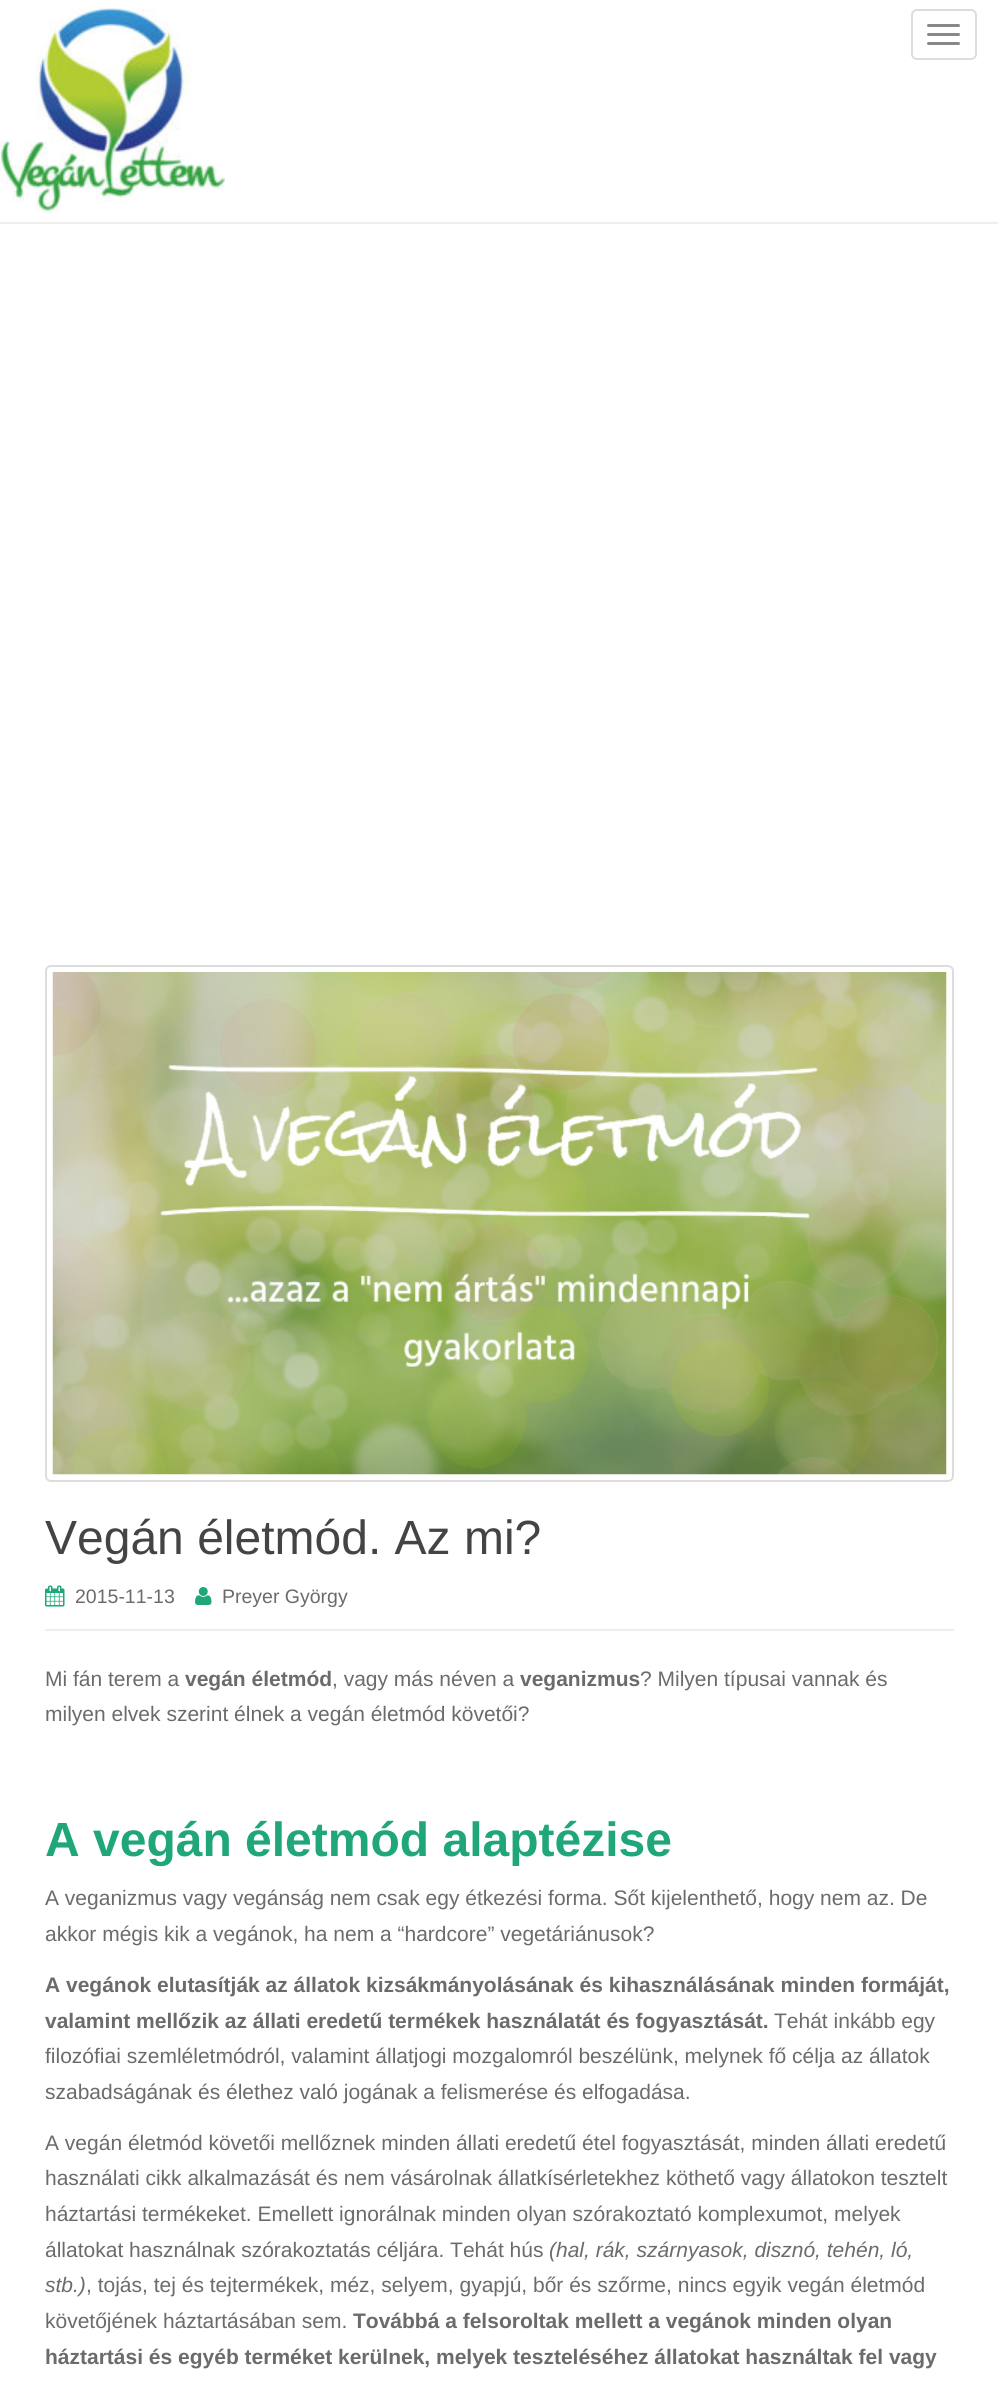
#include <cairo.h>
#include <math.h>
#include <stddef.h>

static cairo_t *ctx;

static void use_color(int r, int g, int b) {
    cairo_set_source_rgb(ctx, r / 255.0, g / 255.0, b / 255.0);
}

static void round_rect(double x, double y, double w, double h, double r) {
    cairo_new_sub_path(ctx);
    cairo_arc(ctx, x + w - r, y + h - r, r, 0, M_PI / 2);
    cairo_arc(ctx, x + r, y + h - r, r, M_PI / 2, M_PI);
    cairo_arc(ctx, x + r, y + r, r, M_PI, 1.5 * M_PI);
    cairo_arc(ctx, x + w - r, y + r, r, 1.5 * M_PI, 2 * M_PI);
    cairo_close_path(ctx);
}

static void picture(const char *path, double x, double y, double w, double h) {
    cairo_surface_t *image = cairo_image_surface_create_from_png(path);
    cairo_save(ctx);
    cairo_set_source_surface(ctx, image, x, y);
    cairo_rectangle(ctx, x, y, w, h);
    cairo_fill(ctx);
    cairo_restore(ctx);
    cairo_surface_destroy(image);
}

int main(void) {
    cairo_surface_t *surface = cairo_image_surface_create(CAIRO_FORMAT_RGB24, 998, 2394);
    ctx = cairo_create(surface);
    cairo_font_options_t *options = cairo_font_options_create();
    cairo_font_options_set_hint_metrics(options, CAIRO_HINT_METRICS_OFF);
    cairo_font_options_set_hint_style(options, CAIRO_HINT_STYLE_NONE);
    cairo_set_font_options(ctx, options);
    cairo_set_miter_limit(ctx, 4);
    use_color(255, 255, 255);
    cairo_paint(ctx);
    use_color(238, 238, 238);
    cairo_rectangle(ctx, 0, 222, 998, 2);
    cairo_fill(ctx);
    picture("img1.png", 0, 8, 225, 205);
    round_rect(912, 10, 64, 49, 5);
    use_color(221, 221, 221);
    cairo_stroke(ctx);
    use_color(136, 136, 136);
    round_rect(927, 24, 33, 3, 1.5);
    cairo_fill(ctx);
    round_rect(927, 33, 33, 3, 1.5);
    cairo_fill(ctx);
    round_rect(927, 42, 33, 3, 1.5);
    cairo_fill(ctx);
    use_color(238, 238, 238);
    cairo_rectangle(ctx, 45, 1629, 909, 2);
    cairo_fill(ctx);
    round_rect(46, 966, 907, 515, 5);
    use_color(221, 221, 221);
    cairo_stroke(ctx);
    picture("img2.png", 52, 972, 895, 503);
    cairo_select_font_face(ctx, "Liberation Sans", CAIRO_FONT_SLANT_NORMAL, CAIRO_FONT_WEIGHT_NORMAL);
    cairo_set_font_size(ctx, 48);
    use_color(68, 68, 68);
    cairo_move_to(ctx, 45, 1554);
    cairo_show_text(ctx, "Vegán életmód. Az mi?");
    picture("img3.png", 45, 1585, 20, 22);
    cairo_set_font_size(ctx, 19.5);
    use_color(107, 107, 107);
    cairo_move_to(ctx, 75, 1603);
    cairo_show_text(ctx, "2015-11-13");
    picture("img4.png", 195, 1587, 17, 18);
    cairo_move_to(ctx, 222, 1603);
    cairo_show_text(ctx, "Preyer György");
    cairo_set_font_size(ctx, 21);
    cairo_move_to(ctx, 45, 1686);
    cairo_show_text(ctx, "Mi fán terem a");
    cairo_select_font_face(ctx, "Liberation Sans", CAIRO_FONT_SLANT_NORMAL, CAIRO_FONT_WEIGHT_BOLD);
    cairo_move_to(ctx, 185, 1686);
    cairo_show_text(ctx, "vegán életmód");
    cairo_select_font_face(ctx, "Liberation Sans", CAIRO_FONT_SLANT_NORMAL, CAIRO_FONT_WEIGHT_NORMAL);
    cairo_move_to(ctx, 332, 1686);
    cairo_show_text(ctx, ", vagy más néven a");
    cairo_select_font_face(ctx, "Liberation Sans", CAIRO_FONT_SLANT_NORMAL, CAIRO_FONT_WEIGHT_BOLD);
    cairo_move_to(ctx, 520, 1686);
    cairo_show_text(ctx, "veganizmus");
    cairo_select_font_face(ctx, "Liberation Sans", CAIRO_FONT_SLANT_NORMAL, CAIRO_FONT_WEIGHT_NORMAL);
    cairo_move_to(ctx, 640, 1686);
    cairo_show_text(ctx, "? Milyen típusai vannak és");
    cairo_move_to(ctx, 45, 1721);
    cairo_show_text(ctx, "milyen elvek szerint élnek a vegán életmód követői?");
    cairo_select_font_face(ctx, "Liberation Sans", CAIRO_FONT_SLANT_NORMAL, CAIRO_FONT_WEIGHT_BOLD);
    cairo_set_font_size(ctx, 48);
    use_color(31, 166, 122);
    cairo_move_to(ctx, 45, 1856);
    cairo_show_text(ctx, "A vegán életmód alaptézise");
    cairo_select_font_face(ctx, "Liberation Sans", CAIRO_FONT_SLANT_NORMAL, CAIRO_FONT_WEIGHT_NORMAL);
    cairo_set_font_size(ctx, 21);
    use_color(107, 107, 107);
    cairo_move_to(ctx, 45, 1905);
    cairo_show_text(ctx, "A veganizmus vagy vegánság nem csak egy étkezési forma. Sőt kijelenthető, hogy nem az. De");
    cairo_move_to(ctx, 45, 1941);
    cairo_show_text(ctx, "akkor mégis kik a vegánok, ha nem a “hardcore” vegetáriánusok?");
    cairo_select_font_face(ctx, "Liberation Sans", CAIRO_FONT_SLANT_NORMAL, CAIRO_FONT_WEIGHT_BOLD);
    cairo_move_to(ctx, 45, 1992);
    cairo_show_text(ctx, "A vegánok elutasítják az állatok kizsákmányolásának és kihasználásának minden formáját,");
    cairo_move_to(ctx, 45, 2028);
    cairo_show_text(ctx, "valamint mellőzik az állati eredetű termékek használatát és fogyasztását.");
    cairo_select_font_face(ctx, "Liberation Sans", CAIRO_FONT_SLANT_NORMAL, CAIRO_FONT_WEIGHT_NORMAL);
    cairo_move_to(ctx, 774, 2028);
    cairo_show_text(ctx, "Tehát inkább egy");
    cairo_move_to(ctx, 45, 2063);
    cairo_show_text(ctx, "filozófiai szemléletmódról, valamint állatjogi mozgalomról beszélünk, melynek fő célja az állatok");
    cairo_move_to(ctx, 45, 2099);
    cairo_show_text(ctx, "szabadságának és élethez való jogának a felismerése és elfogadása.");
    cairo_move_to(ctx, 45, 2150);
    cairo_show_text(ctx, "A vegán életmód követői mellőznek minden állati eredetű étel fogyasztását, minden állati eredetű");
    cairo_move_to(ctx, 45, 2185);
    cairo_show_text(ctx, "használati cikk alkalmazását és nem vásárolnak állatkísérletekhez köthető vagy állatokon tesztelt");
    cairo_move_to(ctx, 45, 2221);
    cairo_show_text(ctx, "háztartási termékeket. Emellett ignorálnak minden olyan szórakoztató komplexumot, melyek");
    cairo_move_to(ctx, 45, 2257);
    cairo_show_text(ctx, "állatokat használnak szórakoztatás céljára. Tehát hús");
    cairo_select_font_face(ctx, "Liberation Sans", CAIRO_FONT_SLANT_ITALIC, CAIRO_FONT_WEIGHT_NORMAL);
    cairo_move_to(ctx, 549, 2257);
    cairo_show_text(ctx, "(hal, rák, szárnyasok, disznó, tehén, ló,");
    cairo_move_to(ctx, 45, 2292);
    cairo_show_text(ctx, "stb.)");
    cairo_select_font_face(ctx, "Liberation Sans", CAIRO_FONT_SLANT_NORMAL, CAIRO_FONT_WEIGHT_NORMAL);
    cairo_move_to(ctx, 86, 2292);
    cairo_show_text(ctx, ", tojás, tej és tejtermékek, méz, selyem, gyapjú, bőr és szőrme, nincs egyik vegán életmód");
    cairo_move_to(ctx, 45, 2328);
    cairo_show_text(ctx, "követőjének háztartásában sem.");
    cairo_select_font_face(ctx, "Liberation Sans", CAIRO_FONT_SLANT_NORMAL, CAIRO_FONT_WEIGHT_BOLD);
    cairo_move_to(ctx, 353, 2328);
    cairo_show_text(ctx, "Továbbá a felsoroltak mellett a vegánok minden olyan");
    cairo_move_to(ctx, 45, 2364);
    cairo_show_text(ctx, "háztartási és egyéb terméket kerülnek, melyek teszteléséhez állatokat használtak fel vagy");
    cairo_surface_write_to_png(surface, "result.png");
    cairo_font_options_destroy(options);
    cairo_destroy(ctx);
    cairo_surface_destroy(surface);
    return 0;
}
